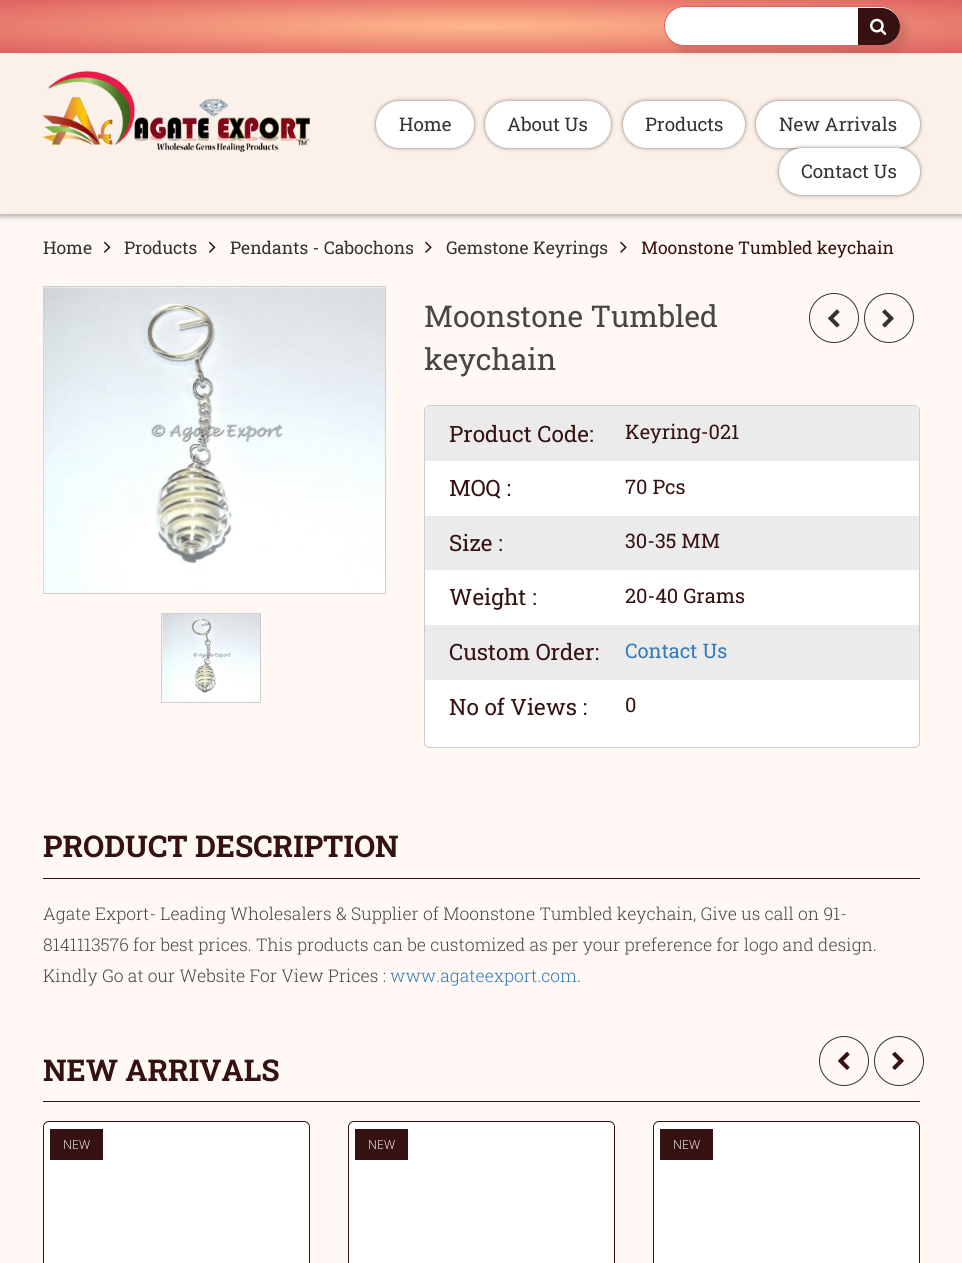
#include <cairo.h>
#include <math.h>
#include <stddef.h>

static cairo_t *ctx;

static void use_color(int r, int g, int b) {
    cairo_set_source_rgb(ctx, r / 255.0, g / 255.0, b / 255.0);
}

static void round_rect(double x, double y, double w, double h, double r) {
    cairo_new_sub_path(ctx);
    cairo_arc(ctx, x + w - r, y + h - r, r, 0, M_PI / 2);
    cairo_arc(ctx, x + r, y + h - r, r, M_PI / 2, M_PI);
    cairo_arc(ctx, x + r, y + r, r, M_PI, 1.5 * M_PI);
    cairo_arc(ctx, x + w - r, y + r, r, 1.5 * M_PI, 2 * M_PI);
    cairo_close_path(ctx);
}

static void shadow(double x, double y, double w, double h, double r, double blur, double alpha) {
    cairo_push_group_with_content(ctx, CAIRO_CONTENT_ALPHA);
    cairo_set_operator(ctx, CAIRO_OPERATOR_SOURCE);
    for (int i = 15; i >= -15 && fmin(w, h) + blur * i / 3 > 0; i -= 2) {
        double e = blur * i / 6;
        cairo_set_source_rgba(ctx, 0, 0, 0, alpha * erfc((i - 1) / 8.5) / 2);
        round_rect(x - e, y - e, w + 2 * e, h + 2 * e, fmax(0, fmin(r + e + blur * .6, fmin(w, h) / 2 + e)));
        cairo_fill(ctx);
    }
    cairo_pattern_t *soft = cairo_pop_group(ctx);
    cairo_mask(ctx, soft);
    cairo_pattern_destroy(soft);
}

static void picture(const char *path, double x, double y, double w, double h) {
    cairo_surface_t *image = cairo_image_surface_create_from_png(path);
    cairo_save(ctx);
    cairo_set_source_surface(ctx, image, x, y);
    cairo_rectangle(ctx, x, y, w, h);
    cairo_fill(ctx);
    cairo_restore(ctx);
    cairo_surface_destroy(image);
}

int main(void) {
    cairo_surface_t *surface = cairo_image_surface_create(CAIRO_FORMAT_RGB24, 962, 1263);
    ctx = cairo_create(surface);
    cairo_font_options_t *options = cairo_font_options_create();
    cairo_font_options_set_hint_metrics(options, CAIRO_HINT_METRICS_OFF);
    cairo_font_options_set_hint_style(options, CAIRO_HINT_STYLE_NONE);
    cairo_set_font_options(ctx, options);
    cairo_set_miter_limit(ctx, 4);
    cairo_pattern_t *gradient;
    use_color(255, 248, 244);
    cairo_paint(ctx);
    use_color(0, 0, 0);
    shadow(0, 3, 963, 213, 0, 3, 0.35);
    use_color(252, 241, 234);
    cairo_rectangle(ctx, 0, 53, 962, 161);
    cairo_fill(ctx);
    gradient = cairo_pattern_create_radial(0, 0, 0, 0, 0, 1);
    cairo_pattern_set_matrix(gradient, &(cairo_matrix_t){1.0 / 681, 0, 0, 1.0 / 37, -1.0 * 481 / 681, -1.0 * 26 / 37});
    cairo_pattern_add_color_stop_rgba(gradient, 0, 1, 0.722, 0.549, 1);
    cairo_pattern_add_color_stop_rgba(gradient, 1, 0.871, 0.384, 0.384, 1);
    cairo_set_source(ctx, gradient);
    cairo_pattern_destroy(gradient);
    cairo_rectangle(ctx, 0, 0, 962, 53);
    cairo_fill(ctx);
    use_color(0, 0, 0);
    shadow(670, 13, 238, 40, 20, 3, 0.1);
    use_color(255, 255, 255);
    round_rect(664.5, 6.5, 236, 39, 19.5);
    cairo_fill_preserve(ctx);
    use_color(222, 98, 98);
    cairo_set_line_width(ctx, 1);
    cairo_stroke(ctx);
    use_color(53, 17, 17);
    cairo_new_path(ctx);
    cairo_move_to(ctx, 858, 8);
    cairo_line_to(ctx, 881.5, 8);
    cairo_curve_to(ctx, 891.5, 8, 900, 16.5, 900, 26.5);
    cairo_curve_to(ctx, 900, 36.5, 891.5, 45, 881.5, 45);
    cairo_line_to(ctx, 858, 45);
    cairo_close_path(ctx);
    cairo_fill(ctx);
    picture("img1.png", 870, 18, 17, 17);
    picture("img2.png", 42, 71, 268, 81);
    use_color(0, 0, 0);
    shadow(376, 101, 98, 47, 23.5, 2, 0.5);
    use_color(255, 255, 255);
    round_rect(376, 101, 98, 47, 23.5);
    cairo_fill(ctx);
    cairo_select_font_face(ctx, "Roboto Slab", CAIRO_FONT_SLANT_NORMAL, CAIRO_FONT_WEIGHT_NORMAL);
    cairo_set_font_size(ctx, 18.75);
    use_color(51, 51, 51);
    cairo_move_to(ctx, 399, 131);
    cairo_show_text(ctx, "Home");
    use_color(0, 0, 0);
    shadow(485, 101, 126, 47, 23.5, 2, 0.5);
    use_color(255, 255, 255);
    round_rect(485, 101, 126, 47, 23.5);
    cairo_fill(ctx);
    use_color(51, 51, 51);
    cairo_move_to(ctx, 507, 131);
    cairo_show_text(ctx, "About Us");
    use_color(0, 0, 0);
    shadow(623, 101, 122, 47, 23.5, 2, 0.5);
    use_color(255, 255, 255);
    round_rect(623, 101, 122, 47, 23.5);
    cairo_fill(ctx);
    use_color(51, 51, 51);
    cairo_move_to(ctx, 645, 131);
    cairo_show_text(ctx, "Products");
    use_color(0, 0, 0);
    shadow(756, 101, 164, 47, 23.5, 2, 0.5);
    use_color(255, 255, 255);
    round_rect(756, 101, 164, 47, 23.5);
    cairo_fill(ctx);
    use_color(51, 51, 51);
    cairo_move_to(ctx, 779, 131);
    cairo_show_text(ctx, "New Arrivals");
    use_color(0, 0, 0);
    shadow(779, 148, 141, 47, 23.5, 2, 0.5);
    use_color(255, 255, 255);
    round_rect(779, 148, 141, 47, 23.5);
    cairo_fill(ctx);
    use_color(51, 51, 51);
    cairo_move_to(ctx, 801, 178);
    cairo_show_text(ctx, "Contact Us");
    cairo_set_font_size(ctx, 17.5);
    cairo_move_to(ctx, 43, 254);
    cairo_show_text(ctx, "Home");
    picture("img3.png", 103, 241, 8, 12);
    cairo_move_to(ctx, 124, 254);
    cairo_show_text(ctx, "Products");
    picture("img3.png", 208, 241, 8, 12);
    cairo_move_to(ctx, 230, 254);
    cairo_show_text(ctx, "Pendants - Cabochons");
    picture("img4.png", 425, 241, 7, 12);
    cairo_move_to(ctx, 446, 254);
    cairo_show_text(ctx, "Gemstone Keyrings");
    picture("img4.png", 620, 241, 7, 12);
    use_color(53, 17, 17);
    cairo_move_to(ctx, 641, 254);
    cairo_show_text(ctx, "Moonstone Tumbled keychain");
    cairo_rectangle(ctx, 43.5, 286.5, 342, 307);
    use_color(206, 206, 206);
    cairo_stroke(ctx);
    picture("img5.png", 43, 287, 342, 306);
    cairo_rectangle(ctx, 161.5, 613.5, 99, 89);
    cairo_stroke(ctx);
    picture("img6.png", 162, 613, 98, 89);
    cairo_set_font_size(ctx, 30);
    use_color(70, 70, 70);
    cairo_move_to(ctx, 424, 327);
    cairo_show_text(ctx, "Moonstone Tumbled");
    cairo_move_to(ctx, 424, 370);
    cairo_show_text(ctx, "keychain");
    cairo_new_path(ctx);
    cairo_arc(ctx, 834, 318, 24.5, 0, 2 * M_PI);
    use_color(51, 51, 51);
    cairo_stroke(ctx);
    picture("img7.png", 828, 309, 12, 19);
    cairo_arc(ctx, 889, 318, 24.5, 0, 2 * M_PI);
    cairo_stroke(ctx);
    picture("img8.png", 882, 309, 12, 19);
    use_color(255, 255, 255);
    round_rect(424.5, 405.5, 495, 342, 5.5);
    cairo_fill_preserve(ctx);
    use_color(204, 204, 204);
    cairo_stroke(ctx);
    use_color(235, 235, 235);
    cairo_new_path(ctx);
    cairo_move_to(ctx, 430, 406);
    cairo_line_to(ctx, 914, 406);
    cairo_curve_to(ctx, 917, 406, 919, 408, 919, 411);
    cairo_line_to(ctx, 919, 461);
    cairo_line_to(ctx, 425, 461);
    cairo_line_to(ctx, 425, 411);
    cairo_curve_to(ctx, 425, 408, 427, 406, 430, 406);
    cairo_close_path(ctx);
    cairo_fill(ctx);
    cairo_set_font_size(ctx, 22.5);
    use_color(53, 17, 17);
    cairo_move_to(ctx, 449, 442);
    cairo_show_text(ctx, "Product Code:");
    cairo_set_font_size(ctx, 20);
    cairo_move_to(ctx, 625, 439);
    cairo_show_text(ctx, "Keyring-021");
    cairo_set_font_size(ctx, 22.5);
    cairo_move_to(ctx, 449, 496);
    cairo_show_text(ctx, "MOQ :");
    cairo_set_font_size(ctx, 20);
    cairo_move_to(ctx, 625, 494);
    cairo_show_text(ctx, "70 Pcs");
    use_color(235, 235, 235);
    cairo_rectangle(ctx, 425, 516, 494, 54);
    cairo_fill(ctx);
    cairo_set_font_size(ctx, 22.5);
    use_color(53, 17, 17);
    cairo_move_to(ctx, 449, 551);
    cairo_show_text(ctx, "Size :");
    cairo_set_font_size(ctx, 20);
    cairo_move_to(ctx, 625, 548);
    cairo_show_text(ctx, "30-35 MM");
    cairo_set_font_size(ctx, 22.5);
    cairo_move_to(ctx, 449, 605);
    cairo_show_text(ctx, "Weight :");
    cairo_set_font_size(ctx, 20);
    cairo_move_to(ctx, 625, 603);
    cairo_show_text(ctx, "20-40 Grams");
    use_color(235, 235, 235);
    cairo_rectangle(ctx, 425, 625, 494, 55);
    cairo_fill(ctx);
    cairo_set_font_size(ctx, 22.5);
    use_color(53, 17, 17);
    cairo_move_to(ctx, 449, 660);
    cairo_show_text(ctx, "Custom Order:");
    cairo_set_font_size(ctx, 20);
    use_color(51, 122, 183);
    cairo_move_to(ctx, 625, 658);
    cairo_show_text(ctx, "Contact Us");
    cairo_set_font_size(ctx, 22.5);
    use_color(53, 17, 17);
    cairo_move_to(ctx, 449, 715);
    cairo_show_text(ctx, "No of Views :");
    cairo_set_font_size(ctx, 20);
    cairo_move_to(ctx, 625, 712);
    cairo_show_text(ctx, "0");
    cairo_rectangle(ctx, 43, 878, 877, 1);
    cairo_fill(ctx);
    cairo_select_font_face(ctx, "Roboto Slab", CAIRO_FONT_SLANT_NORMAL, CAIRO_FONT_WEIGHT_BOLD);
    cairo_set_font_size(ctx, 30);
    cairo_move_to(ctx, 43, 857);
    cairo_show_text(ctx, "PRODUCT DESCRIPTION");
    cairo_select_font_face(ctx, "Roboto Slab Light", CAIRO_FONT_SLANT_NORMAL, CAIRO_FONT_WEIGHT_NORMAL);
    cairo_set_font_size(ctx, 17.5);
    use_color(70, 70, 70);
    cairo_move_to(ctx, 43, 920);
    cairo_show_text(ctx, "Agate Export- Leading Wholesalers & Supplier of Moonstone Tumbled keychain, Give us call on 91-");
    cairo_move_to(ctx, 43, 951);
    cairo_show_text(ctx, "8141113576 for best prices. This products can be customized as per your preference for logo and design.");
    cairo_move_to(ctx, 43, 982);
    cairo_show_text(ctx, "Kindly Go at our Website For View Prices :");
    use_color(51, 122, 183);
    cairo_move_to(ctx, 390, 982);
    cairo_show_text(ctx, "www.agateexport.com");
    use_color(70, 70, 70);
    cairo_move_to(ctx, 577, 982);
    cairo_show_text(ctx, ".");
    use_color(53, 17, 17);
    cairo_rectangle(ctx, 43, 1101, 877, 1);
    cairo_fill(ctx);
    cairo_select_font_face(ctx, "Roboto Slab", CAIRO_FONT_SLANT_NORMAL, CAIRO_FONT_WEIGHT_BOLD);
    cairo_set_font_size(ctx, 30);
    cairo_move_to(ctx, 43, 1081);
    cairo_show_text(ctx, "NEW ARRIVALS");
    cairo_new_path(ctx);
    cairo_arc(ctx, 844, 1061, 24.5, 0, 2 * M_PI);
    use_color(51, 51, 51);
    cairo_stroke(ctx);
    picture("img9.png", 838, 1052, 12, 18);
    cairo_arc(ctx, 899, 1061, 24.5, 0, 2 * M_PI);
    cairo_stroke(ctx);
    picture("img10.png", 892, 1051, 12, 19);
    use_color(255, 255, 255);
    round_rect(43.5, 1121.5, 266, 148, 5.5);
    cairo_fill_preserve(ctx);
    use_color(53, 17, 17);
    cairo_stroke(ctx);
    use_color(255, 255, 255);
    cairo_new_path(ctx);
    cairo_move_to(ctx, 49, 1123);
    cairo_line_to(ctx, 304, 1123);
    cairo_curve_to(ctx, 307, 1123, 309, 1125, 309, 1128);
    cairo_line_to(ctx, 309, 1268);
    cairo_line_to(ctx, 44, 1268);
    cairo_line_to(ctx, 44, 1128);
    cairo_curve_to(ctx, 44, 1125, 46, 1123, 49, 1123);
    cairo_close_path(ctx);
    cairo_fill(ctx);
    use_color(53, 17, 17);
    cairo_rectangle(ctx, 50, 1129, 53, 31);
    cairo_fill(ctx);
    cairo_select_font_face(ctx, "Open Sans Light", CAIRO_FONT_SLANT_NORMAL, CAIRO_FONT_WEIGHT_NORMAL);
    cairo_set_font_size(ctx, 12.5);
    use_color(255, 255, 255);
    cairo_move_to(ctx, 63, 1149);
    cairo_show_text(ctx, "NEW");
    round_rect(348.5, 1121.5, 266, 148, 5.5);
    cairo_fill_preserve(ctx);
    use_color(53, 17, 17);
    cairo_stroke(ctx);
    use_color(255, 255, 255);
    cairo_new_path(ctx);
    cairo_move_to(ctx, 354, 1123);
    cairo_line_to(ctx, 609, 1123);
    cairo_curve_to(ctx, 612, 1123, 614, 1125, 614, 1128);
    cairo_line_to(ctx, 614, 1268);
    cairo_line_to(ctx, 349, 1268);
    cairo_line_to(ctx, 349, 1128);
    cairo_curve_to(ctx, 349, 1125, 351, 1123, 354, 1123);
    cairo_close_path(ctx);
    cairo_fill(ctx);
    use_color(53, 17, 17);
    cairo_rectangle(ctx, 355, 1129, 53, 31);
    cairo_fill(ctx);
    use_color(255, 255, 255);
    cairo_move_to(ctx, 368, 1149);
    cairo_show_text(ctx, "NEW");
    round_rect(653.5, 1121.5, 266, 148, 5.5);
    cairo_fill_preserve(ctx);
    use_color(53, 17, 17);
    cairo_stroke(ctx);
    use_color(255, 255, 255);
    cairo_new_path(ctx);
    cairo_move_to(ctx, 659, 1123);
    cairo_line_to(ctx, 914, 1123);
    cairo_curve_to(ctx, 917, 1123, 919, 1125, 919, 1128);
    cairo_line_to(ctx, 919, 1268);
    cairo_line_to(ctx, 654, 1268);
    cairo_line_to(ctx, 654, 1128);
    cairo_curve_to(ctx, 654, 1125, 656, 1123, 659, 1123);
    cairo_close_path(ctx);
    cairo_fill(ctx);
    use_color(53, 17, 17);
    cairo_rectangle(ctx, 660, 1129, 53, 31);
    cairo_fill(ctx);
    use_color(255, 255, 255);
    cairo_move_to(ctx, 673, 1149);
    cairo_show_text(ctx, "NEW");
    cairo_surface_write_to_png(surface, "result.png");
    cairo_font_options_destroy(options);
    cairo_destroy(ctx);
    cairo_surface_destroy(surface);
    return 0;
}
